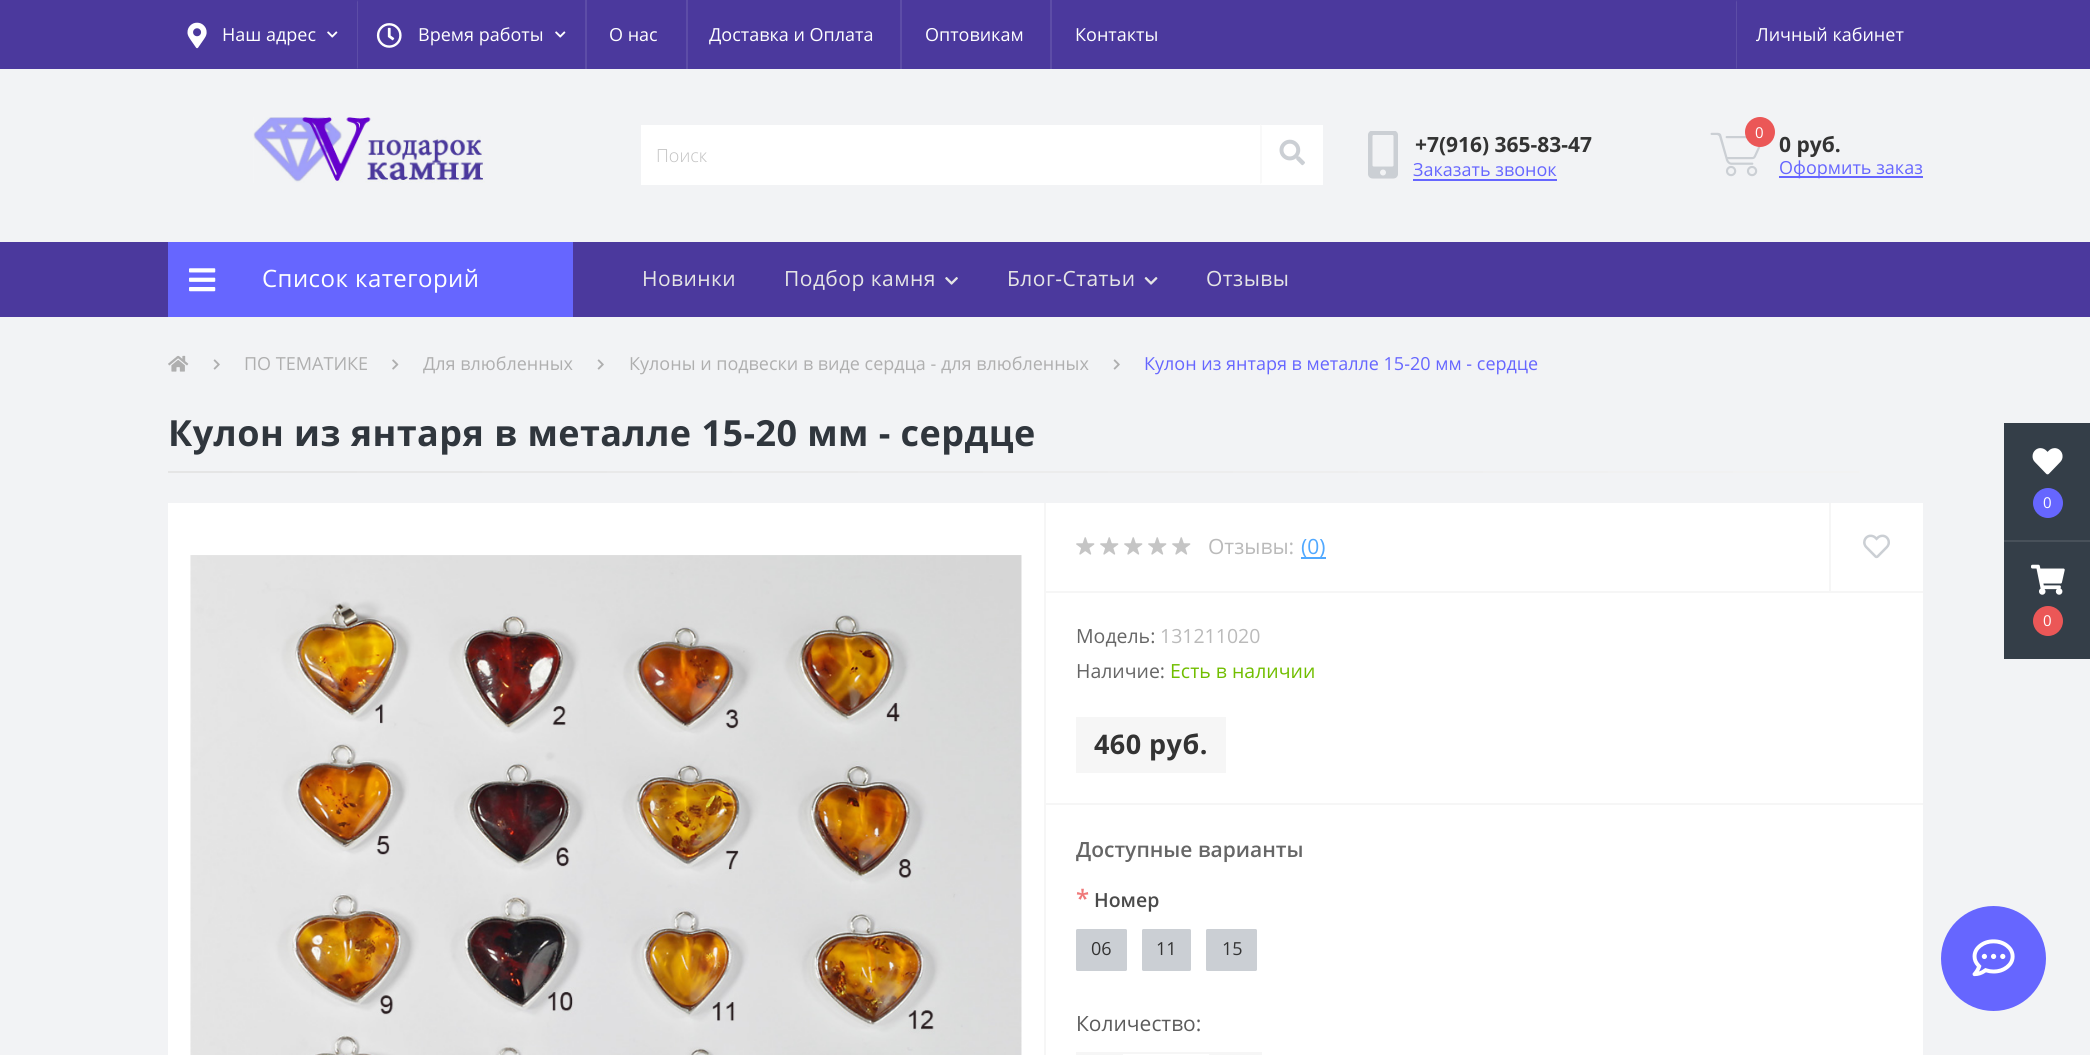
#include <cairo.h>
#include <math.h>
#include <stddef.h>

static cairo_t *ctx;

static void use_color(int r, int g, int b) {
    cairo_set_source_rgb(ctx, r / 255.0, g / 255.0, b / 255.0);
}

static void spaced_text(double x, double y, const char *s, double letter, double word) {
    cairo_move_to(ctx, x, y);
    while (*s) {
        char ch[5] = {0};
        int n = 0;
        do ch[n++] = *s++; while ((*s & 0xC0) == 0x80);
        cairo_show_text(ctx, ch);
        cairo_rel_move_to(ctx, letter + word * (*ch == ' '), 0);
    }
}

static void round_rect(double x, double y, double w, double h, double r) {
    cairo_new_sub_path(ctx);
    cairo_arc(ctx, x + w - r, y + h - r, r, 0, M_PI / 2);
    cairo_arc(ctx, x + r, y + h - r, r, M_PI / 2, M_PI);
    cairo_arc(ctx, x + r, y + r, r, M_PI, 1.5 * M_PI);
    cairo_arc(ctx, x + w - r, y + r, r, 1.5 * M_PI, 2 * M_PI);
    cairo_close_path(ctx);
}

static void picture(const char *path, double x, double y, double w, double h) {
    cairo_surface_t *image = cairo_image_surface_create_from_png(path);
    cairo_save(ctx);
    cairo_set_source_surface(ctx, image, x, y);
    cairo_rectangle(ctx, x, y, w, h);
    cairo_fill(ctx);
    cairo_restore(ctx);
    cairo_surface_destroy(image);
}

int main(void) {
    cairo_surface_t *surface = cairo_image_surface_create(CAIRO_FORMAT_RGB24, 2090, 1055);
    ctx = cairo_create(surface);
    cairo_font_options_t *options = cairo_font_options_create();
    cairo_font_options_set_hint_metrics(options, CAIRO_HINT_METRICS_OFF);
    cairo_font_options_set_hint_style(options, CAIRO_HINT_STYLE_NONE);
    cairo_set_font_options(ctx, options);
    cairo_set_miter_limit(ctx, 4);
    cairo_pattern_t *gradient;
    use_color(242, 243, 245);
    cairo_paint(ctx);
    use_color(75, 57, 157);
    cairo_rectangle(ctx, 0, 0, 2090, 69);
    cairo_fill(ctx);
    picture("img1.png", 187, 22, 20, 27);
    cairo_select_font_face(ctx, "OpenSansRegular", CAIRO_FONT_SLANT_NORMAL, CAIRO_FONT_WEIGHT_NORMAL);
    cairo_set_font_size(ctx, 18);
    use_color(255, 255, 255);
    cairo_move_to(ctx, 222, 41);
    cairo_show_text(ctx, "Наш адрес");
    picture("img2.png", 327, 31, 11, 7);
    use_color(93, 77, 167);
    cairo_new_path(ctx);
    cairo_move_to(ctx, 357, 69);
    cairo_line_to(ctx, 357, 0);
    cairo_line_to(ctx, 358, 2);
    cairo_line_to(ctx, 358, 68);
    cairo_close_path(ctx);
    cairo_fill(ctx);
    picture("img3.png", 376, 23, 26, 25);
    use_color(255, 255, 255);
    cairo_move_to(ctx, 418, 41);
    cairo_show_text(ctx, "Время работы");
    picture("img2.png", 555, 31, 11, 7);
    use_color(93, 77, 167);
    cairo_rectangle(ctx, 585, 0, 2, 69);
    cairo_fill(ctx);
    use_color(255, 255, 255);
    cairo_move_to(ctx, 609, 41);
    cairo_show_text(ctx, "О нас");
    use_color(93, 77, 167);
    cairo_rectangle(ctx, 686, 0, 2, 69);
    cairo_fill(ctx);
    use_color(255, 255, 255);
    cairo_move_to(ctx, 709, 41);
    cairo_show_text(ctx, "Доставка и Оплата");
    use_color(93, 77, 167);
    cairo_rectangle(ctx, 900, 0, 2, 69);
    cairo_fill(ctx);
    use_color(255, 255, 255);
    cairo_move_to(ctx, 925, 41);
    cairo_show_text(ctx, "Оптовикам");
    use_color(93, 77, 167);
    cairo_rectangle(ctx, 1050, 0, 2, 69);
    cairo_fill(ctx);
    use_color(255, 255, 255);
    cairo_move_to(ctx, 1075, 41);
    cairo_show_text(ctx, "Контакты");
    use_color(93, 77, 167);
    cairo_new_path(ctx);
    cairo_move_to(ctx, 1736, 69);
    cairo_line_to(ctx, 1736, 0);
    cairo_line_to(ctx, 1737, 2);
    cairo_line_to(ctx, 1737, 68);
    cairo_close_path(ctx);
    cairo_fill(ctx);
    use_color(255, 255, 255);
    cairo_move_to(ctx, 1756, 41);
    cairo_show_text(ctx, "Личный кабинет");
    picture("img4.png", 253, 117, 232, 66);
    cairo_rectangle(ctx, 641, 125, 682, 60);
    cairo_fill(ctx);
    cairo_select_font_face(ctx, "Open Sans Light", CAIRO_FONT_SLANT_NORMAL, CAIRO_FONT_WEIGHT_NORMAL);
    use_color(194, 194, 194);
    cairo_move_to(ctx, 656, 162);
    cairo_show_text(ctx, "Поиск");
    use_color(249, 249, 249);
    cairo_new_path(ctx);
    cairo_move_to(ctx, 1260, 184);
    cairo_line_to(ctx, 1260, 124);
    cairo_line_to(ctx, 1262, 126);
    cairo_line_to(ctx, 1262, 183);
    cairo_close_path(ctx);
    cairo_fill(ctx);
    picture("img5.png", 1279, 139, 26, 27);
    picture("img6.png", 1368, 131, 30, 48);
    cairo_select_font_face(ctx, "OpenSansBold", CAIRO_FONT_SLANT_NORMAL, CAIRO_FONT_WEIGHT_BOLD);
    cairo_set_font_size(ctx, 21);
    use_color(51, 51, 51);
    cairo_move_to(ctx, 1415, 152);
    cairo_show_text(ctx, "+7(916) 365-83-47");
    cairo_select_font_face(ctx, "OpenSansRegular", CAIRO_FONT_SLANT_NORMAL, CAIRO_FONT_WEIGHT_NORMAL);
    cairo_set_font_size(ctx, 18);
    use_color(102, 102, 255);
    cairo_move_to(ctx, 1413, 176);
    cairo_show_text(ctx, "Заказать звонок");
    cairo_rectangle(ctx, 1413, 179, 144, 2);
    cairo_fill(ctx);
    picture("img7.png", 1710, 132, 51, 45);
    use_color(235, 87, 87);
    cairo_arc(ctx, 1760, 132, 15, 0, 2 * M_PI);
    cairo_fill(ctx);
    cairo_set_font_size(ctx, 15);
    use_color(255, 255, 255);
    cairo_move_to(ctx, 1755, 138);
    cairo_show_text(ctx, "0");
    cairo_select_font_face(ctx, "OpenSansBold", CAIRO_FONT_SLANT_NORMAL, CAIRO_FONT_WEIGHT_BOLD);
    cairo_set_font_size(ctx, 21);
    use_color(51, 51, 51);
    cairo_move_to(ctx, 1779, 152);
    cairo_show_text(ctx, "0 руб.");
    use_color(102, 102, 255);
    cairo_rectangle(ctx, 1779, 176, 144, 2);
    cairo_fill(ctx);
    cairo_select_font_face(ctx, "OpenSansRegular", CAIRO_FONT_SLANT_NORMAL, CAIRO_FONT_WEIGHT_NORMAL);
    cairo_set_font_size(ctx, 18);
    cairo_move_to(ctx, 1779, 174);
    cairo_show_text(ctx, "Оформить заказ");
    use_color(75, 57, 157);
    cairo_rectangle(ctx, 0, 242, 2090, 75);
    cairo_fill(ctx);
    use_color(102, 102, 255);
    cairo_rectangle(ctx, 168, 242, 405, 75);
    cairo_fill(ctx);
    picture("img8.png", 189, 268, 27, 24);
    cairo_set_font_size(ctx, 24);
    use_color(255, 255, 255);
    spaced_text(262, 287, "Список категорий", 0.45, 0);
    cairo_set_font_size(ctx, 21);
    use_color(229, 229, 229);
    spaced_text(642, 286, "Новинки", 0.45, 0);
    spaced_text(784, 286, "Подбор камня", 0.45, 0);
    picture("img9.png", 945, 277, 13, 8);
    spaced_text(1007, 286, "Блог-Статьи", 0.45, 0);
    picture("img10.png", 1144, 277, 14, 8);
    spaced_text(1206, 286, "Отзывы", 0.45, 0);
    picture("img11.png", 168, 355, 21, 17);
    picture("img12.png", 213, 359, 7, 11);
    cairo_set_font_size(ctx, 18);
    use_color(175, 175, 175);
    cairo_move_to(ctx, 244, 370);
    cairo_show_text(ctx, "ПО ТЕМАТИКЕ");
    picture("img13.png", 392, 359, 7, 11);
    cairo_move_to(ctx, 423, 370);
    cairo_show_text(ctx, "Для влюбленных");
    picture("img12.png", 597, 359, 7, 11);
    cairo_move_to(ctx, 629, 370);
    cairo_show_text(ctx, "Кулоны и подвески в виде сердца - для влюбленных");
    picture("img12.png", 1113, 359, 7, 11);
    use_color(102, 102, 255);
    cairo_move_to(ctx, 1144, 370);
    cairo_show_text(ctx, "Кулон из янтаря в металле 15-20 мм - сердце");
    cairo_select_font_face(ctx, "OpenSansBold", CAIRO_FONT_SLANT_NORMAL, CAIRO_FONT_WEIGHT_BOLD);
    cairo_set_font_size(ctx, 36);
    use_color(48, 54, 61);
    spaced_text(168, 446, "Кулон из янтаря в металле 15-20 мм - сердце", 0.45, 0);
    gradient = cairo_pattern_create_linear(168, 473, 1923, 471);
    cairo_pattern_add_color_stop_rgba(gradient, 0, 0.898, 0.898, 0.898, 1);
    cairo_pattern_add_color_stop_rgba(gradient, 1, 0.953, 0.953, 0.953, 1);
    cairo_set_source(ctx, gradient);
    cairo_pattern_destroy(gradient);
    cairo_rectangle(ctx, 168, 471, 1692, 2);
    cairo_fill(ctx);
    use_color(255, 255, 255);
    cairo_rectangle(ctx, 168, 503, 1755, 552);
    cairo_fill(ctx);
    use_color(246, 246, 246);
    cairo_rectangle(ctx, 1044, 503, 2, 552);
    cairo_fill(ctx);
    picture("img14.png", 190, 555, 832, 500);
    cairo_rectangle(ctx, 1046, 591, 877, 2);
    cairo_fill(ctx);
    picture("img15.png", 1076, 537, 19, 18);
    picture("img15.png", 1100, 537, 19, 18);
    picture("img15.png", 1124, 537, 19, 18);
    picture("img15.png", 1148, 537, 19, 18);
    picture("img15.png", 1172, 537, 19, 18);
    cairo_select_font_face(ctx, "OpenSansRegular", CAIRO_FONT_SLANT_NORMAL, CAIRO_FONT_WEIGHT_NORMAL);
    cairo_set_font_size(ctx, 21);
    use_color(186, 186, 186);
    cairo_move_to(ctx, 1208, 554);
    cairo_show_text(ctx, "Отзывы:");
    use_color(80, 168, 255);
    cairo_rectangle(ctx, 1301, 557, 25, 2);
    cairo_fill(ctx);
    cairo_move_to(ctx, 1301, 554);
    cairo_show_text(ctx, "(0)");
    use_color(246, 246, 246);
    cairo_rectangle(ctx, 1829, 503, 2, 88);
    cairo_fill(ctx);
    picture("img16.png", 1863, 534, 27, 25);
    cairo_rectangle(ctx, 1046, 803, 877, 2);
    cairo_fill(ctx);
    cairo_set_font_size(ctx, 19.5);
    use_color(102, 102, 102);
    cairo_move_to(ctx, 1076, 643);
    cairo_show_text(ctx, "Модель:");
    use_color(186, 186, 186);
    cairo_move_to(ctx, 1160, 643);
    cairo_show_text(ctx, "131211020");
    use_color(102, 102, 102);
    cairo_move_to(ctx, 1076, 678);
    cairo_show_text(ctx, "Наличие:");
    use_color(113, 190, 0);
    cairo_move_to(ctx, 1170, 678);
    cairo_show_text(ctx, "Есть в наличии");
    use_color(246, 246, 246);
    cairo_rectangle(ctx, 1076, 717, 150, 56);
    cairo_fill(ctx);
    cairo_select_font_face(ctx, "OpenSansBold", CAIRO_FONT_SLANT_NORMAL, CAIRO_FONT_WEIGHT_BOLD);
    cairo_set_font_size(ctx, 27);
    use_color(51, 51, 51);
    spaced_text(1094, 754, "460 руб.", 0.45, 0);
    cairo_select_font_face(ctx, "Open Sans SemiBold", CAIRO_FONT_SLANT_NORMAL, CAIRO_FONT_WEIGHT_NORMAL);
    cairo_set_font_size(ctx, 21);
    use_color(102, 102, 102);
    cairo_move_to(ctx, 1076, 857);
    cairo_show_text(ctx, "Доступные варианты");
    cairo_set_font_size(ctx, 24);
    use_color(239, 121, 121);
    cairo_move_to(ctx, 1076, 907);
    cairo_show_text(ctx, "*");
    cairo_set_font_size(ctx, 19.5);
    use_color(74, 74, 74);
    cairo_move_to(ctx, 1094, 907);
    cairo_show_text(ctx, "Номер");
    use_color(203, 207, 212);
    round_rect(1076, 929, 51, 42, 1.5);
    cairo_fill(ctx);
    cairo_select_font_face(ctx, "OpenSansRegular", CAIRO_FONT_SLANT_NORMAL, CAIRO_FONT_WEIGHT_NORMAL);
    cairo_set_font_size(ctx, 18);
    use_color(51, 51, 51);
    cairo_move_to(ctx, 1091, 955);
    cairo_show_text(ctx, "06");
    use_color(203, 207, 212);
    round_rect(1142, 929, 49, 42, 1.5);
    cairo_fill(ctx);
    use_color(51, 51, 51);
    cairo_move_to(ctx, 1156, 955);
    cairo_show_text(ctx, "11");
    use_color(203, 207, 212);
    round_rect(1206, 929, 51, 42, 1.5);
    cairo_fill(ctx);
    use_color(51, 51, 51);
    cairo_move_to(ctx, 1222, 955);
    cairo_show_text(ctx, "15");
    cairo_set_font_size(ctx, 21);
    use_color(92, 92, 92);
    cairo_move_to(ctx, 1076, 1031);
    cairo_show_text(ctx, "Количество:");
    use_color(246, 246, 246);
    cairo_rectangle(ctx, 1076, 1052, 45, 3);
    cairo_fill(ctx);
    cairo_rectangle(ctx, 1122, 1053, 88, 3);
    cairo_stroke(ctx);
    cairo_rectangle(ctx, 1211, 1052, 51, 3);
    cairo_fill(ctx);
    use_color(52, 62, 72);
    cairo_rectangle(ctx, 2004, 423, 86, 236);
    cairo_fill(ctx);
    picture("img17.png", 2032, 448, 31, 27);
    use_color(102, 102, 255);
    cairo_arc(ctx, 2048, 503, 15, 0, 2 * M_PI);
    cairo_fill(ctx);
    cairo_set_font_size(ctx, 15);
    use_color(255, 255, 255);
    cairo_move_to(ctx, 2043, 508);
    cairo_show_text(ctx, "0");
    use_color(72, 81, 90);
    cairo_rectangle(ctx, 2004, 540, 86, 2);
    cairo_fill(ctx);
    picture("img18.png", 2031, 564, 34, 31);
    use_color(235, 87, 87);
    cairo_arc(ctx, 2048, 621, 15, 0, 2 * M_PI);
    cairo_fill(ctx);
    use_color(255, 255, 255);
    cairo_move_to(ctx, 2043, 626);
    cairo_show_text(ctx, "0");
    use_color(102, 102, 255);
    cairo_new_path(ctx);
    cairo_arc(ctx, 1993.5, 958.5, 52.5, 0, 2 * M_PI);
    cairo_fill(ctx);
    picture("img19.png", 1972, 939, 43, 38);
    cairo_surface_write_to_png(surface, "result.png");
    cairo_font_options_destroy(options);
    cairo_destroy(ctx);
    cairo_surface_destroy(surface);
    return 0;
}
